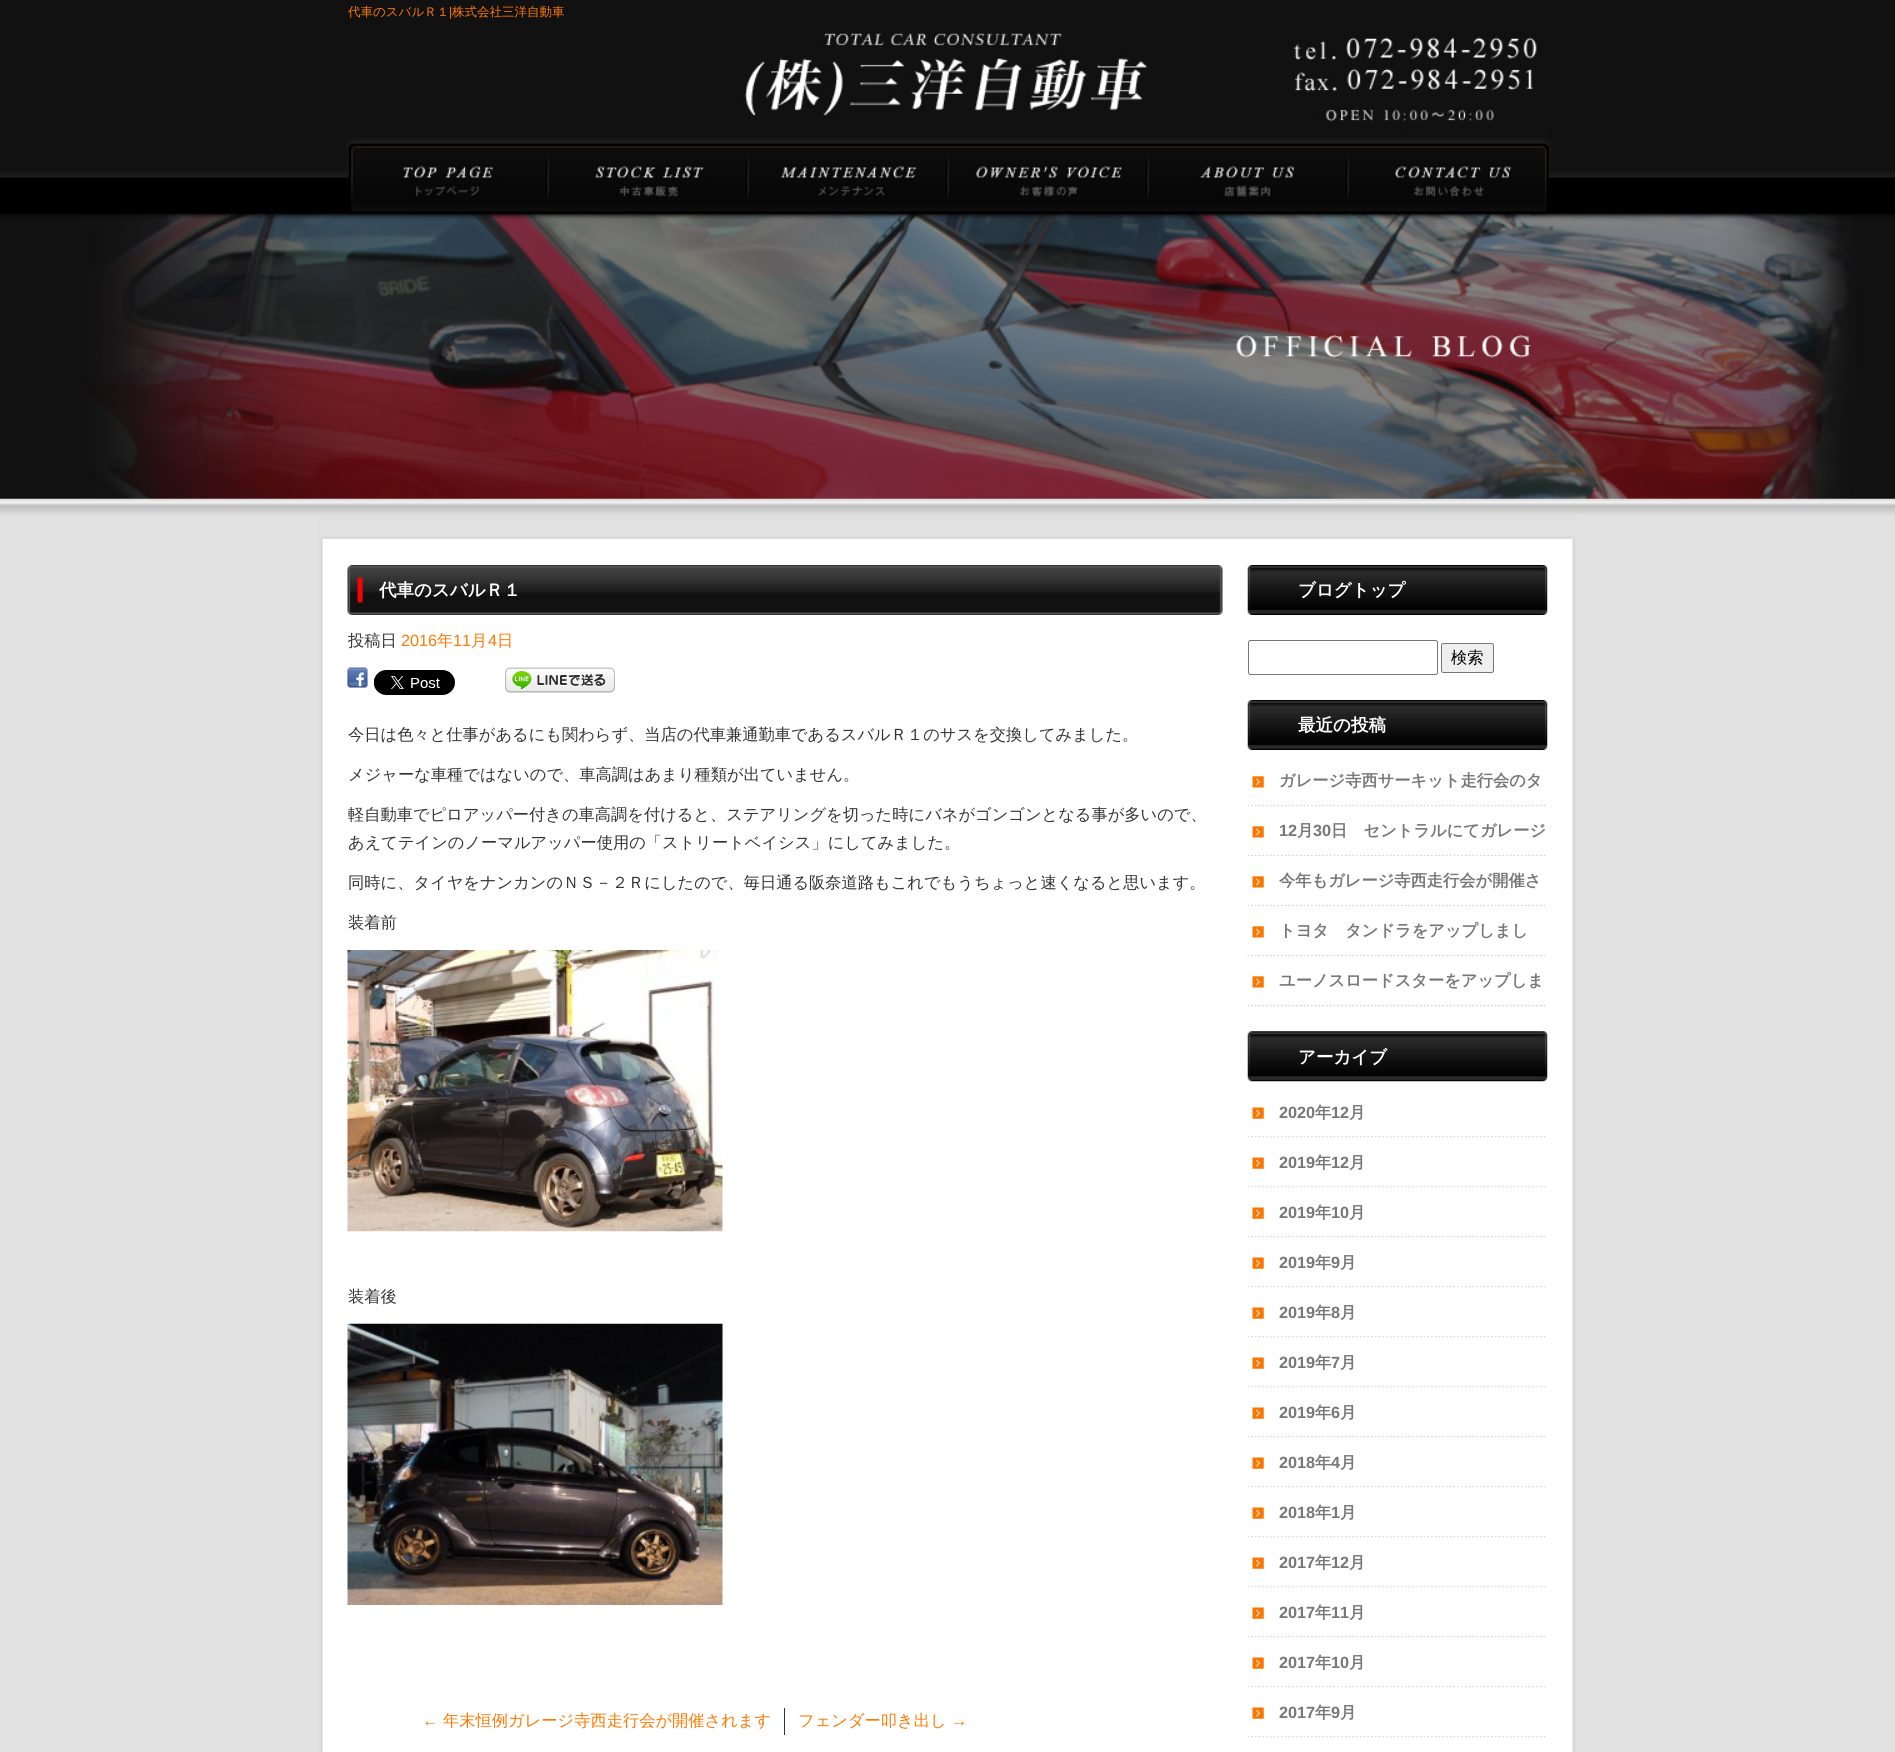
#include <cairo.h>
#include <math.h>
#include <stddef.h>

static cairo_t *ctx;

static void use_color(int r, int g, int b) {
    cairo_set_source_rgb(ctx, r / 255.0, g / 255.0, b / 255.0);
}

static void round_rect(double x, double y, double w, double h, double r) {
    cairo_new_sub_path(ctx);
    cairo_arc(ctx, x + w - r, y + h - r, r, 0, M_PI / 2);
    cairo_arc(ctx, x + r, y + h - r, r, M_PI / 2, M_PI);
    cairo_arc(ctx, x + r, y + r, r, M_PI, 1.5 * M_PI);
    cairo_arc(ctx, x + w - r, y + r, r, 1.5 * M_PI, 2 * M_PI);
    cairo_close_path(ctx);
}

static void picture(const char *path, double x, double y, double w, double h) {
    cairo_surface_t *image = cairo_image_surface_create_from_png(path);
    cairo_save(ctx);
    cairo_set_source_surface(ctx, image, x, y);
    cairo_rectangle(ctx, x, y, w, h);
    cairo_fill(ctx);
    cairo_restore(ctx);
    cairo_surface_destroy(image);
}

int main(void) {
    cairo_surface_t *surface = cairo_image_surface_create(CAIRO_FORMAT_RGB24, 1895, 1752);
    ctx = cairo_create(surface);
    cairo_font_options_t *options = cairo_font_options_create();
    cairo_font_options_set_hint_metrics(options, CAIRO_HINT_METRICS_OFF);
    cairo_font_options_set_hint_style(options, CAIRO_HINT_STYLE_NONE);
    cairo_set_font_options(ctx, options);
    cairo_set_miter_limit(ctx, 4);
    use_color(255, 255, 255);
    cairo_paint(ctx);
    picture("img1.png", 0, 0, 1895, 515);
    picture("img2.png", 348, 33, 1200, 181);
    cairo_select_font_face(ctx, "WenQuanYi Zen Hei Medium", CAIRO_FONT_SLANT_NORMAL, CAIRO_FONT_WEIGHT_NORMAL);
    cairo_set_font_size(ctx, 12.5);
    use_color(254, 121, 3);
    cairo_move_to(ctx, 348, 16);
    cairo_show_text(ctx, "代車のスバルＲ１");
    cairo_select_font_face(ctx, "Liberation Sans", CAIRO_FONT_SLANT_NORMAL, CAIRO_FONT_WEIGHT_NORMAL);
    cairo_move_to(ctx, 449, 16);
    cairo_show_text(ctx, "|");
    cairo_select_font_face(ctx, "WenQuanYi Zen Hei Medium", CAIRO_FONT_SLANT_NORMAL, CAIRO_FONT_WEIGHT_NORMAL);
    cairo_move_to(ctx, 452, 16);
    cairo_show_text(ctx, "株式会社三洋自動車");
    picture("img9.png", 347, 213, 1201, 287);
    picture("img3.png", 347, 143, 201, 71);
    picture("img4.png", 547, 143, 201, 71);
    picture("img5.png", 747, 143, 201, 71);
    picture("img6.png", 947, 143, 201, 71);
    picture("img7.png", 1147, 143, 201, 71);
    picture("img8.png", 1347, 143, 200, 71);
    picture("img10.png", 0, 515, 1895, 1237);
    picture("img11.png", 320, 515, 1255, 24);
    picture("img12.png", 347, 565, 876, 50);
    cairo_select_font_face(ctx, "WenQuanYi Zen Hei", CAIRO_FONT_SLANT_NORMAL, CAIRO_FONT_WEIGHT_BOLD);
    cairo_set_font_size(ctx, 17.5);
    use_color(255, 255, 255);
    cairo_move_to(ctx, 379, 596);
    cairo_show_text(ctx, "代車のスバルＲ１");
    cairo_select_font_face(ctx, "WenQuanYi Zen Hei Medium", CAIRO_FONT_SLANT_NORMAL, CAIRO_FONT_WEIGHT_NORMAL);
    cairo_set_font_size(ctx, 16.25);
    use_color(51, 51, 51);
    cairo_move_to(ctx, 348, 646);
    cairo_show_text(ctx, "投稿日");
    cairo_select_font_face(ctx, "Liberation Sans", CAIRO_FONT_SLANT_NORMAL, CAIRO_FONT_WEIGHT_NORMAL);
    use_color(254, 121, 3);
    cairo_move_to(ctx, 401, 646);
    cairo_show_text(ctx, "2016");
    cairo_select_font_face(ctx, "WenQuanYi Zen Hei Medium", CAIRO_FONT_SLANT_NORMAL, CAIRO_FONT_WEIGHT_NORMAL);
    cairo_move_to(ctx, 437, 646);
    cairo_show_text(ctx, "年");
    cairo_select_font_face(ctx, "Liberation Sans", CAIRO_FONT_SLANT_NORMAL, CAIRO_FONT_WEIGHT_NORMAL);
    cairo_move_to(ctx, 453, 646);
    cairo_show_text(ctx, "11");
    cairo_select_font_face(ctx, "WenQuanYi Zen Hei Medium", CAIRO_FONT_SLANT_NORMAL, CAIRO_FONT_WEIGHT_NORMAL);
    cairo_move_to(ctx, 471, 646);
    cairo_show_text(ctx, "月");
    cairo_select_font_face(ctx, "Liberation Sans", CAIRO_FONT_SLANT_NORMAL, CAIRO_FONT_WEIGHT_NORMAL);
    cairo_move_to(ctx, 488, 646);
    cairo_show_text(ctx, "4");
    cairo_select_font_face(ctx, "WenQuanYi Zen Hei Medium", CAIRO_FONT_SLANT_NORMAL, CAIRO_FONT_WEIGHT_NORMAL);
    cairo_move_to(ctx, 497, 646);
    cairo_show_text(ctx, "日");
    picture("img13.png", 347, 667, 21, 21);
    picture("img14.png", 373, 670, 82, 25);
    picture("img15.png", 505, 667, 110, 26);
    use_color(51, 51, 51);
    cairo_move_to(ctx, 348, 740);
    cairo_show_text(ctx, "今日は色々と仕事があるにも関わらず、当店の代車兼通勤車であるスバルＲ１のサスを交換してみました。");
    cairo_move_to(ctx, 348, 780);
    cairo_show_text(ctx, "メジャーな車種ではないので、車高調はあまり種類が出ていません。");
    cairo_move_to(ctx, 348, 820);
    cairo_show_text(ctx, "軽自動車でピロアッパー付きの車高調を付けると、ステアリングを切った時にバネがゴンゴンとなる事が多いので、");
    cairo_move_to(ctx, 348, 848);
    cairo_show_text(ctx, "あえてテインのノーマルアッパー使用の「ストリートベイシス」にしてみました。");
    cairo_move_to(ctx, 348, 888);
    cairo_show_text(ctx, "同時に、タイヤをナンカンのＮＳ－２Ｒにしたので、毎日通る阪奈道路もこれでもうちょっと速くなると思います。");
    cairo_move_to(ctx, 348, 928);
    cairo_show_text(ctx, "装着前");
    picture("img16.png", 347, 950, 376, 282);
    cairo_move_to(ctx, 348, 1302);
    cairo_show_text(ctx, "装着後");
    picture("img17.png", 347, 1323, 376, 282);
    cairo_rectangle(ctx, 784, 1708, 1, 27);
    cairo_fill(ctx);
    cairo_select_font_face(ctx, "Liberation Sans", CAIRO_FONT_SLANT_NORMAL, CAIRO_FONT_WEIGHT_NORMAL);
    use_color(254, 121, 3);
    cairo_move_to(ctx, 422, 1726);
    cairo_show_text(ctx, "←");
    cairo_select_font_face(ctx, "WenQuanYi Zen Hei Medium", CAIRO_FONT_SLANT_NORMAL, CAIRO_FONT_WEIGHT_NORMAL);
    cairo_move_to(ctx, 443, 1726);
    cairo_show_text(ctx, "年末恒例ガレージ寺西走行会が開催されます");
    cairo_move_to(ctx, 798, 1726);
    cairo_show_text(ctx, "フェンダー叩き出し");
    cairo_select_font_face(ctx, "Liberation Sans", CAIRO_FONT_SLANT_NORMAL, CAIRO_FONT_WEIGHT_NORMAL);
    cairo_move_to(ctx, 951, 1726);
    cairo_show_text(ctx, "→");
    picture("img18.png", 1247, 565, 301, 50);
    cairo_select_font_face(ctx, "WenQuanYi Zen Hei", CAIRO_FONT_SLANT_NORMAL, CAIRO_FONT_WEIGHT_BOLD);
    cairo_set_font_size(ctx, 17.5);
    use_color(255, 255, 255);
    cairo_move_to(ctx, 1298, 596);
    cairo_show_text(ctx, "ブログトップ");
    round_rect(1248.5, 640.5, 189, 34, 2);
    use_color(118, 118, 118);
    cairo_set_line_width(ctx, 1);
    cairo_stroke(ctx);
    use_color(239, 239, 239);
    round_rect(1441.5, 643.5, 52, 29, 2);
    cairo_fill_preserve(ctx);
    use_color(118, 118, 118);
    cairo_stroke(ctx);
    cairo_select_font_face(ctx, "WenQuanYi Zen Hei Medium", CAIRO_FONT_SLANT_NORMAL, CAIRO_FONT_WEIGHT_NORMAL);
    cairo_set_font_size(ctx, 16.25);
    use_color(0, 0, 0);
    cairo_move_to(ctx, 1451, 663);
    cairo_show_text(ctx, "検索");
    picture("img19.png", 1247, 700, 301, 50);
    cairo_select_font_face(ctx, "WenQuanYi Zen Hei", CAIRO_FONT_SLANT_NORMAL, CAIRO_FONT_WEIGHT_BOLD);
    cairo_set_font_size(ctx, 17.5);
    use_color(255, 255, 255);
    cairo_move_to(ctx, 1298, 731);
    cairo_show_text(ctx, "最近の投稿");
    picture("img20.png", 1247, 776, 299, 31);
    cairo_set_font_size(ctx, 16.25);
    use_color(119, 119, 119);
    cairo_move_to(ctx, 1279, 786);
    cairo_show_text(ctx, "ガレージ寺西サーキット走行会のタ");
    picture("img21.png", 1247, 806, 299, 51);
    cairo_select_font_face(ctx, "Liberation Sans", CAIRO_FONT_SLANT_NORMAL, CAIRO_FONT_WEIGHT_BOLD);
    cairo_move_to(ctx, 1279, 836);
    cairo_show_text(ctx, "12");
    cairo_select_font_face(ctx, "WenQuanYi Zen Hei", CAIRO_FONT_SLANT_NORMAL, CAIRO_FONT_WEIGHT_BOLD);
    cairo_move_to(ctx, 1297, 836);
    cairo_show_text(ctx, "月");
    cairo_select_font_face(ctx, "Liberation Sans", CAIRO_FONT_SLANT_NORMAL, CAIRO_FONT_WEIGHT_BOLD);
    cairo_move_to(ctx, 1313, 836);
    cairo_show_text(ctx, "30");
    cairo_select_font_face(ctx, "WenQuanYi Zen Hei", CAIRO_FONT_SLANT_NORMAL, CAIRO_FONT_WEIGHT_BOLD);
    cairo_move_to(ctx, 1331, 836);
    cairo_show_text(ctx, "日　セントラルにてガレージ");
    picture("img21.png", 1247, 856, 299, 51);
    cairo_move_to(ctx, 1279, 886);
    cairo_show_text(ctx, "今年もガレージ寺西走行会が開催さ");
    picture("img21.png", 1247, 906, 299, 51);
    cairo_move_to(ctx, 1279, 936);
    cairo_show_text(ctx, "トヨタ　タンドラをアップしまし");
    picture("img21.png", 1247, 956, 299, 51);
    cairo_move_to(ctx, 1279, 986);
    cairo_show_text(ctx, "ユーノスロードスターをアップしま");
    picture("img22.png", 1247, 1031, 301, 51);
    cairo_set_font_size(ctx, 17.5);
    use_color(255, 255, 255);
    cairo_move_to(ctx, 1298, 1063);
    cairo_show_text(ctx, "アーカイブ");
    picture("img23.png", 1247, 1107, 299, 31);
    cairo_select_font_face(ctx, "Liberation Sans", CAIRO_FONT_SLANT_NORMAL, CAIRO_FONT_WEIGHT_BOLD);
    cairo_set_font_size(ctx, 16.25);
    use_color(119, 119, 119);
    cairo_move_to(ctx, 1279, 1118);
    cairo_show_text(ctx, "2020");
    cairo_select_font_face(ctx, "WenQuanYi Zen Hei", CAIRO_FONT_SLANT_NORMAL, CAIRO_FONT_WEIGHT_BOLD);
    cairo_move_to(ctx, 1315, 1118);
    cairo_show_text(ctx, "年");
    cairo_select_font_face(ctx, "Liberation Sans", CAIRO_FONT_SLANT_NORMAL, CAIRO_FONT_WEIGHT_BOLD);
    cairo_move_to(ctx, 1331, 1118);
    cairo_show_text(ctx, "12");
    cairo_select_font_face(ctx, "WenQuanYi Zen Hei", CAIRO_FONT_SLANT_NORMAL, CAIRO_FONT_WEIGHT_BOLD);
    cairo_move_to(ctx, 1349, 1118);
    cairo_show_text(ctx, "月");
    picture("img24.png", 1247, 1137, 299, 51);
    cairo_select_font_face(ctx, "Liberation Sans", CAIRO_FONT_SLANT_NORMAL, CAIRO_FONT_WEIGHT_BOLD);
    cairo_move_to(ctx, 1279, 1168);
    cairo_show_text(ctx, "2019");
    cairo_select_font_face(ctx, "WenQuanYi Zen Hei", CAIRO_FONT_SLANT_NORMAL, CAIRO_FONT_WEIGHT_BOLD);
    cairo_move_to(ctx, 1315, 1168);
    cairo_show_text(ctx, "年");
    cairo_select_font_face(ctx, "Liberation Sans", CAIRO_FONT_SLANT_NORMAL, CAIRO_FONT_WEIGHT_BOLD);
    cairo_move_to(ctx, 1331, 1168);
    cairo_show_text(ctx, "12");
    cairo_select_font_face(ctx, "WenQuanYi Zen Hei", CAIRO_FONT_SLANT_NORMAL, CAIRO_FONT_WEIGHT_BOLD);
    cairo_move_to(ctx, 1349, 1168);
    cairo_show_text(ctx, "月");
    picture("img25.png", 1247, 1187, 299, 51);
    cairo_select_font_face(ctx, "Liberation Sans", CAIRO_FONT_SLANT_NORMAL, CAIRO_FONT_WEIGHT_BOLD);
    cairo_move_to(ctx, 1279, 1218);
    cairo_show_text(ctx, "2019");
    cairo_select_font_face(ctx, "WenQuanYi Zen Hei", CAIRO_FONT_SLANT_NORMAL, CAIRO_FONT_WEIGHT_BOLD);
    cairo_move_to(ctx, 1315, 1218);
    cairo_show_text(ctx, "年");
    cairo_select_font_face(ctx, "Liberation Sans", CAIRO_FONT_SLANT_NORMAL, CAIRO_FONT_WEIGHT_BOLD);
    cairo_move_to(ctx, 1331, 1218);
    cairo_show_text(ctx, "10");
    cairo_select_font_face(ctx, "WenQuanYi Zen Hei", CAIRO_FONT_SLANT_NORMAL, CAIRO_FONT_WEIGHT_BOLD);
    cairo_move_to(ctx, 1349, 1218);
    cairo_show_text(ctx, "月");
    picture("img25.png", 1247, 1237, 299, 51);
    cairo_select_font_face(ctx, "Liberation Sans", CAIRO_FONT_SLANT_NORMAL, CAIRO_FONT_WEIGHT_BOLD);
    cairo_move_to(ctx, 1279, 1268);
    cairo_show_text(ctx, "2019");
    cairo_select_font_face(ctx, "WenQuanYi Zen Hei", CAIRO_FONT_SLANT_NORMAL, CAIRO_FONT_WEIGHT_BOLD);
    cairo_move_to(ctx, 1315, 1268);
    cairo_show_text(ctx, "年");
    cairo_select_font_face(ctx, "Liberation Sans", CAIRO_FONT_SLANT_NORMAL, CAIRO_FONT_WEIGHT_BOLD);
    cairo_move_to(ctx, 1331, 1268);
    cairo_show_text(ctx, "9");
    cairo_select_font_face(ctx, "WenQuanYi Zen Hei", CAIRO_FONT_SLANT_NORMAL, CAIRO_FONT_WEIGHT_BOLD);
    cairo_move_to(ctx, 1340, 1268);
    cairo_show_text(ctx, "月");
    picture("img25.png", 1247, 1287, 299, 51);
    cairo_select_font_face(ctx, "Liberation Sans", CAIRO_FONT_SLANT_NORMAL, CAIRO_FONT_WEIGHT_BOLD);
    cairo_move_to(ctx, 1279, 1318);
    cairo_show_text(ctx, "2019");
    cairo_select_font_face(ctx, "WenQuanYi Zen Hei", CAIRO_FONT_SLANT_NORMAL, CAIRO_FONT_WEIGHT_BOLD);
    cairo_move_to(ctx, 1315, 1318);
    cairo_show_text(ctx, "年");
    cairo_select_font_face(ctx, "Liberation Sans", CAIRO_FONT_SLANT_NORMAL, CAIRO_FONT_WEIGHT_BOLD);
    cairo_move_to(ctx, 1331, 1318);
    cairo_show_text(ctx, "8");
    cairo_select_font_face(ctx, "WenQuanYi Zen Hei", CAIRO_FONT_SLANT_NORMAL, CAIRO_FONT_WEIGHT_BOLD);
    cairo_move_to(ctx, 1340, 1318);
    cairo_show_text(ctx, "月");
    picture("img25.png", 1247, 1337, 299, 51);
    cairo_select_font_face(ctx, "Liberation Sans", CAIRO_FONT_SLANT_NORMAL, CAIRO_FONT_WEIGHT_BOLD);
    cairo_move_to(ctx, 1279, 1368);
    cairo_show_text(ctx, "2019");
    cairo_select_font_face(ctx, "WenQuanYi Zen Hei", CAIRO_FONT_SLANT_NORMAL, CAIRO_FONT_WEIGHT_BOLD);
    cairo_move_to(ctx, 1315, 1368);
    cairo_show_text(ctx, "年");
    cairo_select_font_face(ctx, "Liberation Sans", CAIRO_FONT_SLANT_NORMAL, CAIRO_FONT_WEIGHT_BOLD);
    cairo_move_to(ctx, 1331, 1368);
    cairo_show_text(ctx, "7");
    cairo_select_font_face(ctx, "WenQuanYi Zen Hei", CAIRO_FONT_SLANT_NORMAL, CAIRO_FONT_WEIGHT_BOLD);
    cairo_move_to(ctx, 1340, 1368);
    cairo_show_text(ctx, "月");
    picture("img25.png", 1247, 1387, 299, 51);
    cairo_select_font_face(ctx, "Liberation Sans", CAIRO_FONT_SLANT_NORMAL, CAIRO_FONT_WEIGHT_BOLD);
    cairo_move_to(ctx, 1279, 1418);
    cairo_show_text(ctx, "2019");
    cairo_select_font_face(ctx, "WenQuanYi Zen Hei", CAIRO_FONT_SLANT_NORMAL, CAIRO_FONT_WEIGHT_BOLD);
    cairo_move_to(ctx, 1315, 1418);
    cairo_show_text(ctx, "年");
    cairo_select_font_face(ctx, "Liberation Sans", CAIRO_FONT_SLANT_NORMAL, CAIRO_FONT_WEIGHT_BOLD);
    cairo_move_to(ctx, 1331, 1418);
    cairo_show_text(ctx, "6");
    cairo_select_font_face(ctx, "WenQuanYi Zen Hei", CAIRO_FONT_SLANT_NORMAL, CAIRO_FONT_WEIGHT_BOLD);
    cairo_move_to(ctx, 1340, 1418);
    cairo_show_text(ctx, "月");
    picture("img25.png", 1247, 1437, 299, 51);
    cairo_select_font_face(ctx, "Liberation Sans", CAIRO_FONT_SLANT_NORMAL, CAIRO_FONT_WEIGHT_BOLD);
    cairo_move_to(ctx, 1279, 1468);
    cairo_show_text(ctx, "2018");
    cairo_select_font_face(ctx, "WenQuanYi Zen Hei", CAIRO_FONT_SLANT_NORMAL, CAIRO_FONT_WEIGHT_BOLD);
    cairo_move_to(ctx, 1315, 1468);
    cairo_show_text(ctx, "年");
    cairo_select_font_face(ctx, "Liberation Sans", CAIRO_FONT_SLANT_NORMAL, CAIRO_FONT_WEIGHT_BOLD);
    cairo_move_to(ctx, 1331, 1468);
    cairo_show_text(ctx, "4");
    cairo_select_font_face(ctx, "WenQuanYi Zen Hei", CAIRO_FONT_SLANT_NORMAL, CAIRO_FONT_WEIGHT_BOLD);
    cairo_move_to(ctx, 1340, 1468);
    cairo_show_text(ctx, "月");
    picture("img25.png", 1247, 1487, 299, 51);
    cairo_select_font_face(ctx, "Liberation Sans", CAIRO_FONT_SLANT_NORMAL, CAIRO_FONT_WEIGHT_BOLD);
    cairo_move_to(ctx, 1279, 1518);
    cairo_show_text(ctx, "2018");
    cairo_select_font_face(ctx, "WenQuanYi Zen Hei", CAIRO_FONT_SLANT_NORMAL, CAIRO_FONT_WEIGHT_BOLD);
    cairo_move_to(ctx, 1315, 1518);
    cairo_show_text(ctx, "年");
    cairo_select_font_face(ctx, "Liberation Sans", CAIRO_FONT_SLANT_NORMAL, CAIRO_FONT_WEIGHT_BOLD);
    cairo_move_to(ctx, 1331, 1518);
    cairo_show_text(ctx, "1");
    cairo_select_font_face(ctx, "WenQuanYi Zen Hei", CAIRO_FONT_SLANT_NORMAL, CAIRO_FONT_WEIGHT_BOLD);
    cairo_move_to(ctx, 1340, 1518);
    cairo_show_text(ctx, "月");
    picture("img25.png", 1247, 1537, 299, 51);
    cairo_select_font_face(ctx, "Liberation Sans", CAIRO_FONT_SLANT_NORMAL, CAIRO_FONT_WEIGHT_BOLD);
    cairo_move_to(ctx, 1279, 1568);
    cairo_show_text(ctx, "2017");
    cairo_select_font_face(ctx, "WenQuanYi Zen Hei", CAIRO_FONT_SLANT_NORMAL, CAIRO_FONT_WEIGHT_BOLD);
    cairo_move_to(ctx, 1315, 1568);
    cairo_show_text(ctx, "年");
    cairo_select_font_face(ctx, "Liberation Sans", CAIRO_FONT_SLANT_NORMAL, CAIRO_FONT_WEIGHT_BOLD);
    cairo_move_to(ctx, 1331, 1568);
    cairo_show_text(ctx, "12");
    cairo_select_font_face(ctx, "WenQuanYi Zen Hei", CAIRO_FONT_SLANT_NORMAL, CAIRO_FONT_WEIGHT_BOLD);
    cairo_move_to(ctx, 1349, 1568);
    cairo_show_text(ctx, "月");
    picture("img25.png", 1247, 1587, 299, 51);
    cairo_select_font_face(ctx, "Liberation Sans", CAIRO_FONT_SLANT_NORMAL, CAIRO_FONT_WEIGHT_BOLD);
    cairo_move_to(ctx, 1279, 1618);
    cairo_show_text(ctx, "2017");
    cairo_select_font_face(ctx, "WenQuanYi Zen Hei", CAIRO_FONT_SLANT_NORMAL, CAIRO_FONT_WEIGHT_BOLD);
    cairo_move_to(ctx, 1315, 1618);
    cairo_show_text(ctx, "年");
    cairo_select_font_face(ctx, "Liberation Sans", CAIRO_FONT_SLANT_NORMAL, CAIRO_FONT_WEIGHT_BOLD);
    cairo_move_to(ctx, 1331, 1618);
    cairo_show_text(ctx, "11");
    cairo_select_font_face(ctx, "WenQuanYi Zen Hei", CAIRO_FONT_SLANT_NORMAL, CAIRO_FONT_WEIGHT_BOLD);
    cairo_move_to(ctx, 1349, 1618);
    cairo_show_text(ctx, "月");
    picture("img25.png", 1247, 1637, 299, 51);
    cairo_select_font_face(ctx, "Liberation Sans", CAIRO_FONT_SLANT_NORMAL, CAIRO_FONT_WEIGHT_BOLD);
    cairo_move_to(ctx, 1279, 1668);
    cairo_show_text(ctx, "2017");
    cairo_select_font_face(ctx, "WenQuanYi Zen Hei", CAIRO_FONT_SLANT_NORMAL, CAIRO_FONT_WEIGHT_BOLD);
    cairo_move_to(ctx, 1315, 1668);
    cairo_show_text(ctx, "年");
    cairo_select_font_face(ctx, "Liberation Sans", CAIRO_FONT_SLANT_NORMAL, CAIRO_FONT_WEIGHT_BOLD);
    cairo_move_to(ctx, 1331, 1668);
    cairo_show_text(ctx, "10");
    cairo_select_font_face(ctx, "WenQuanYi Zen Hei", CAIRO_FONT_SLANT_NORMAL, CAIRO_FONT_WEIGHT_BOLD);
    cairo_move_to(ctx, 1349, 1668);
    cairo_show_text(ctx, "月");
    picture("img25.png", 1247, 1687, 299, 51);
    cairo_select_font_face(ctx, "Liberation Sans", CAIRO_FONT_SLANT_NORMAL, CAIRO_FONT_WEIGHT_BOLD);
    cairo_move_to(ctx, 1279, 1718);
    cairo_show_text(ctx, "2017");
    cairo_select_font_face(ctx, "WenQuanYi Zen Hei", CAIRO_FONT_SLANT_NORMAL, CAIRO_FONT_WEIGHT_BOLD);
    cairo_move_to(ctx, 1315, 1718);
    cairo_show_text(ctx, "年");
    cairo_select_font_face(ctx, "Liberation Sans", CAIRO_FONT_SLANT_NORMAL, CAIRO_FONT_WEIGHT_BOLD);
    cairo_move_to(ctx, 1331, 1718);
    cairo_show_text(ctx, "9");
    cairo_select_font_face(ctx, "WenQuanYi Zen Hei", CAIRO_FONT_SLANT_NORMAL, CAIRO_FONT_WEIGHT_BOLD);
    cairo_move_to(ctx, 1340, 1718);
    cairo_show_text(ctx, "月");
    cairo_set_source_rgba(ctx, 1, 1, 1, 0.5);
    cairo_rectangle(ctx, 1248, 1737, 297, 1);
    cairo_fill(ctx);
    cairo_surface_write_to_png(surface, "result.png");
    cairo_font_options_destroy(options);
    cairo_destroy(ctx);
    cairo_surface_destroy(surface);
    return 0;
}
